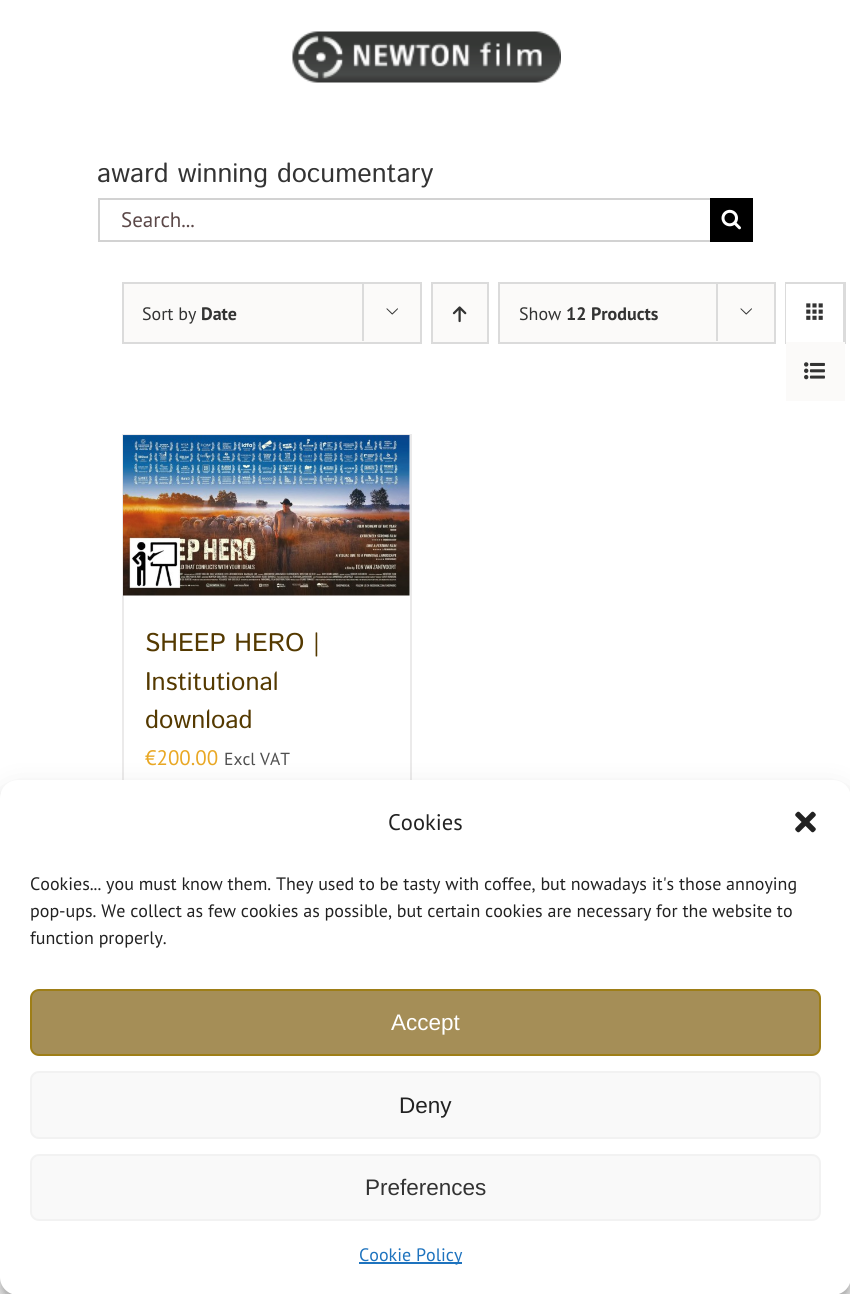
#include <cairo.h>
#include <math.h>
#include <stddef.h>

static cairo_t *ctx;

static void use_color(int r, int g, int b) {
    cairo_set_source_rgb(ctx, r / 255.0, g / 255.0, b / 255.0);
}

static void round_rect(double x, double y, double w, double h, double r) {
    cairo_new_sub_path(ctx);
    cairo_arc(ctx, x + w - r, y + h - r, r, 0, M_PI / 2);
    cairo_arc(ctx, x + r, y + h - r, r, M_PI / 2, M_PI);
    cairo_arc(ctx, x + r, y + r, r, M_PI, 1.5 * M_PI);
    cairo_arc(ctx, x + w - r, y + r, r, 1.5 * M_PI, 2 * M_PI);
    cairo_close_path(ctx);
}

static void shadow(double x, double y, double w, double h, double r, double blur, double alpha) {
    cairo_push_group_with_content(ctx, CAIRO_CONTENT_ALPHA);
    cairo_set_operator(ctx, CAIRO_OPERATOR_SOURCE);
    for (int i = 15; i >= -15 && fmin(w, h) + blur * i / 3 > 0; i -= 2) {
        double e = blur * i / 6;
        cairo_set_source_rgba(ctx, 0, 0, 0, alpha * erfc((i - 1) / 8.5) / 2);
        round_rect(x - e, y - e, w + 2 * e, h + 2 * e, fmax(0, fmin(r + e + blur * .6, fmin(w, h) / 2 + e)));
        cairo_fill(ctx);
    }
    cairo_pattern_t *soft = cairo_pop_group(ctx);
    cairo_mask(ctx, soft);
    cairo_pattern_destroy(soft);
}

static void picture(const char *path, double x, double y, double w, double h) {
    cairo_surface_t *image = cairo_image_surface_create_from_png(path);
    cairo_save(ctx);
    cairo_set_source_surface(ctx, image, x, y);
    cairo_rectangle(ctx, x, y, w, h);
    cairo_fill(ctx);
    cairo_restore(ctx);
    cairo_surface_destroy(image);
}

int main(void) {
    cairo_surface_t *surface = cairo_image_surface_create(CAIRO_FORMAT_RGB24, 850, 1294);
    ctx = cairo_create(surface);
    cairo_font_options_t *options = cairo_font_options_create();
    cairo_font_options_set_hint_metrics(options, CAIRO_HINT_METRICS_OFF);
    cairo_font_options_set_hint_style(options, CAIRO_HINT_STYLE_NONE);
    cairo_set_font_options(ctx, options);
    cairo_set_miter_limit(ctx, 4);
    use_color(255, 255, 255);
    cairo_paint(ctx);
    picture("img1.png", 292, 31, 269, 52);
    cairo_select_font_face(ctx, "Istok Web", CAIRO_FONT_SLANT_NORMAL, CAIRO_FONT_WEIGHT_NORMAL);
    cairo_set_font_size(ctx, 27);
    use_color(51, 51, 51);
    cairo_move_to(ctx, 97, 182);
    cairo_show_text(ctx, "award winning documentary");
    use_color(210, 210, 210);
    cairo_rectangle(ctx, 98, 198, 612, 2);
    cairo_fill(ctx);
    cairo_rectangle(ctx, 98, 240, 612, 2);
    cairo_fill(ctx);
    cairo_rectangle(ctx, 98, 198, 2, 44);
    cairo_fill(ctx);
    cairo_select_font_face(ctx, "PT Sans", CAIRO_FONT_SLANT_NORMAL, CAIRO_FONT_WEIGHT_NORMAL);
    cairo_set_font_size(ctx, 21);
    use_color(91, 72, 72);
    cairo_move_to(ctx, 121, 227);
    cairo_show_text(ctx, "Search...");
    use_color(0, 0, 0);
    cairo_rectangle(ctx, 710, 198, 43, 44);
    cairo_fill(ctx);
    picture("img2.png", 721, 209, 20, 21);
    use_color(251, 250, 249);
    cairo_rectangle(ctx, 123, 283, 298, 60);
    cairo_fill_preserve(ctx);
    use_color(219, 219, 219);
    cairo_stroke(ctx);
    cairo_set_font_size(ctx, 18);
    use_color(51, 51, 51);
    cairo_move_to(ctx, 142, 320);
    cairo_show_text(ctx, "Sort by");
    cairo_select_font_face(ctx, "PT Sans", CAIRO_FONT_SLANT_NORMAL, CAIRO_FONT_WEIGHT_BOLD);
    cairo_move_to(ctx, 201, 320);
    cairo_show_text(ctx, "Date");
    use_color(219, 219, 219);
    cairo_rectangle(ctx, 362, 282, 2, 59);
    cairo_fill(ctx);
    picture("img3.png", 386, 308, 12, 7);
    use_color(251, 250, 249);
    cairo_rectangle(ctx, 432, 283, 56, 60);
    cairo_fill_preserve(ctx);
    use_color(219, 219, 219);
    cairo_stroke(ctx);
    picture("img4.png", 452, 306, 15, 17);
    use_color(251, 250, 249);
    cairo_rectangle(ctx, 499, 283, 276, 60);
    cairo_fill_preserve(ctx);
    use_color(219, 219, 219);
    cairo_stroke(ctx);
    cairo_select_font_face(ctx, "PT Sans", CAIRO_FONT_SLANT_NORMAL, CAIRO_FONT_WEIGHT_NORMAL);
    use_color(51, 51, 51);
    cairo_move_to(ctx, 519, 320);
    cairo_show_text(ctx, "Show");
    cairo_select_font_face(ctx, "PT Sans", CAIRO_FONT_SLANT_NORMAL, CAIRO_FONT_WEIGHT_BOLD);
    cairo_move_to(ctx, 566, 320);
    cairo_show_text(ctx, "12 Products");
    use_color(219, 219, 219);
    cairo_rectangle(ctx, 716, 282, 2, 59);
    cairo_fill(ctx);
    picture("img3.png", 740, 308, 12, 7);
    cairo_rectangle(ctx, 786, 283, 59, 60);
    cairo_stroke(ctx);
    use_color(255, 255, 255);
    cairo_rectangle(ctx, 786, 284, 1, 58);
    cairo_fill(ctx);
    use_color(219, 219, 219);
    cairo_rectangle(ctx, 843, 284, 1, 58);
    cairo_fill(ctx);
    picture("img5.png", 806, 303, 17, 17);
    use_color(251, 250, 249);
    cairo_rectangle(ctx, 786, 342, 59, 59);
    cairo_fill(ctx);
    picture("img6.png", 804, 362, 21, 18);
    use_color(235, 234, 234);
    cairo_rectangle(ctx, 122, 434, 289, 2);
    cairo_fill(ctx);
    cairo_rectangle(ctx, 410, 434, 2, 346);
    cairo_fill(ctx);
    cairo_rectangle(ctx, 122, 434, 2, 346);
    cairo_fill(ctx);
    picture("img7.png", 123, 435, 287, 161);
    cairo_select_font_face(ctx, "Istok Web", CAIRO_FONT_SLANT_NORMAL, CAIRO_FONT_WEIGHT_NORMAL);
    cairo_set_font_size(ctx, 25.5);
    use_color(84, 57, 0);
    cairo_move_to(ctx, 145, 651);
    cairo_show_text(ctx, "SHEEP HERO |");
    cairo_move_to(ctx, 145, 690);
    cairo_show_text(ctx, "Institutional");
    cairo_move_to(ctx, 145, 728);
    cairo_show_text(ctx, "download");
    cairo_select_font_face(ctx, "PT Sans", CAIRO_FONT_SLANT_NORMAL, CAIRO_FONT_WEIGHT_NORMAL);
    cairo_set_font_size(ctx, 21);
    use_color(233, 168, 37);
    cairo_move_to(ctx, 145, 765);
    cairo_show_text(ctx, "€200.00");
    cairo_set_font_size(ctx, 17.5);
    use_color(79, 79, 79);
    cairo_move_to(ctx, 224, 765);
    cairo_show_text(ctx, "Excl VAT");
    use_color(0, 0, 0);
    shadow(0, 789, 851, 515, 18, 4.5, 0.23);
    shadow(0, 795, 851, 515, 18, 15, 0.19);
    use_color(255, 255, 255);
    round_rect(0, 780, 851, 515, 18);
    cairo_fill(ctx);
    cairo_set_font_size(ctx, 22.5);
    use_color(34, 34, 34);
    cairo_move_to(ctx, 388, 830);
    cairo_show_text(ctx, "Cookies");
    picture("img8.png", 795, 811, 21, 22);
    cairo_set_font_size(ctx, 18);
    cairo_move_to(ctx, 30, 890);
    cairo_show_text(ctx, "Cookies... you must know them. They used to be tasty with coffee, but nowadays it's those annoying");
    cairo_move_to(ctx, 30, 917);
    cairo_show_text(ctx, "pop-ups. We collect as few cookies as possible, but certain cookies are necessary for the website to");
    cairo_move_to(ctx, 30, 944);
    cairo_show_text(ctx, "function properly.");
    use_color(165, 142, 87);
    round_rect(31, 990, 789, 65, 8);
    cairo_fill_preserve(ctx);
    use_color(158, 126, 23);
    cairo_stroke(ctx);
    cairo_select_font_face(ctx, "Liberation Sans", CAIRO_FONT_SLANT_NORMAL, CAIRO_FONT_WEIGHT_NORMAL);
    cairo_set_font_size(ctx, 22.5);
    use_color(255, 255, 255);
    cairo_move_to(ctx, 391, 1030);
    cairo_show_text(ctx, "Accept");
    use_color(249, 249, 249);
    round_rect(31, 1072, 789, 66, 8);
    cairo_fill_preserve(ctx);
    use_color(242, 242, 242);
    cairo_stroke(ctx);
    use_color(34, 34, 34);
    cairo_move_to(ctx, 399, 1113);
    cairo_show_text(ctx, "Deny");
    use_color(249, 249, 249);
    round_rect(31, 1155, 789, 65, 8);
    cairo_fill_preserve(ctx);
    use_color(242, 242, 242);
    cairo_stroke(ctx);
    use_color(51, 51, 51);
    cairo_move_to(ctx, 365, 1195);
    cairo_show_text(ctx, "Preferences");
    use_color(30, 115, 190);
    cairo_rectangle(ctx, 359, 1262, 103, 2);
    cairo_fill(ctx);
    cairo_select_font_face(ctx, "PT Sans", CAIRO_FONT_SLANT_NORMAL, CAIRO_FONT_WEIGHT_NORMAL);
    cairo_set_font_size(ctx, 18);
    cairo_move_to(ctx, 359, 1261);
    cairo_show_text(ctx, "Cookie Policy");
    cairo_surface_write_to_png(surface, "result.png");
    cairo_font_options_destroy(options);
    cairo_destroy(ctx);
    cairo_surface_destroy(surface);
    return 0;
}
